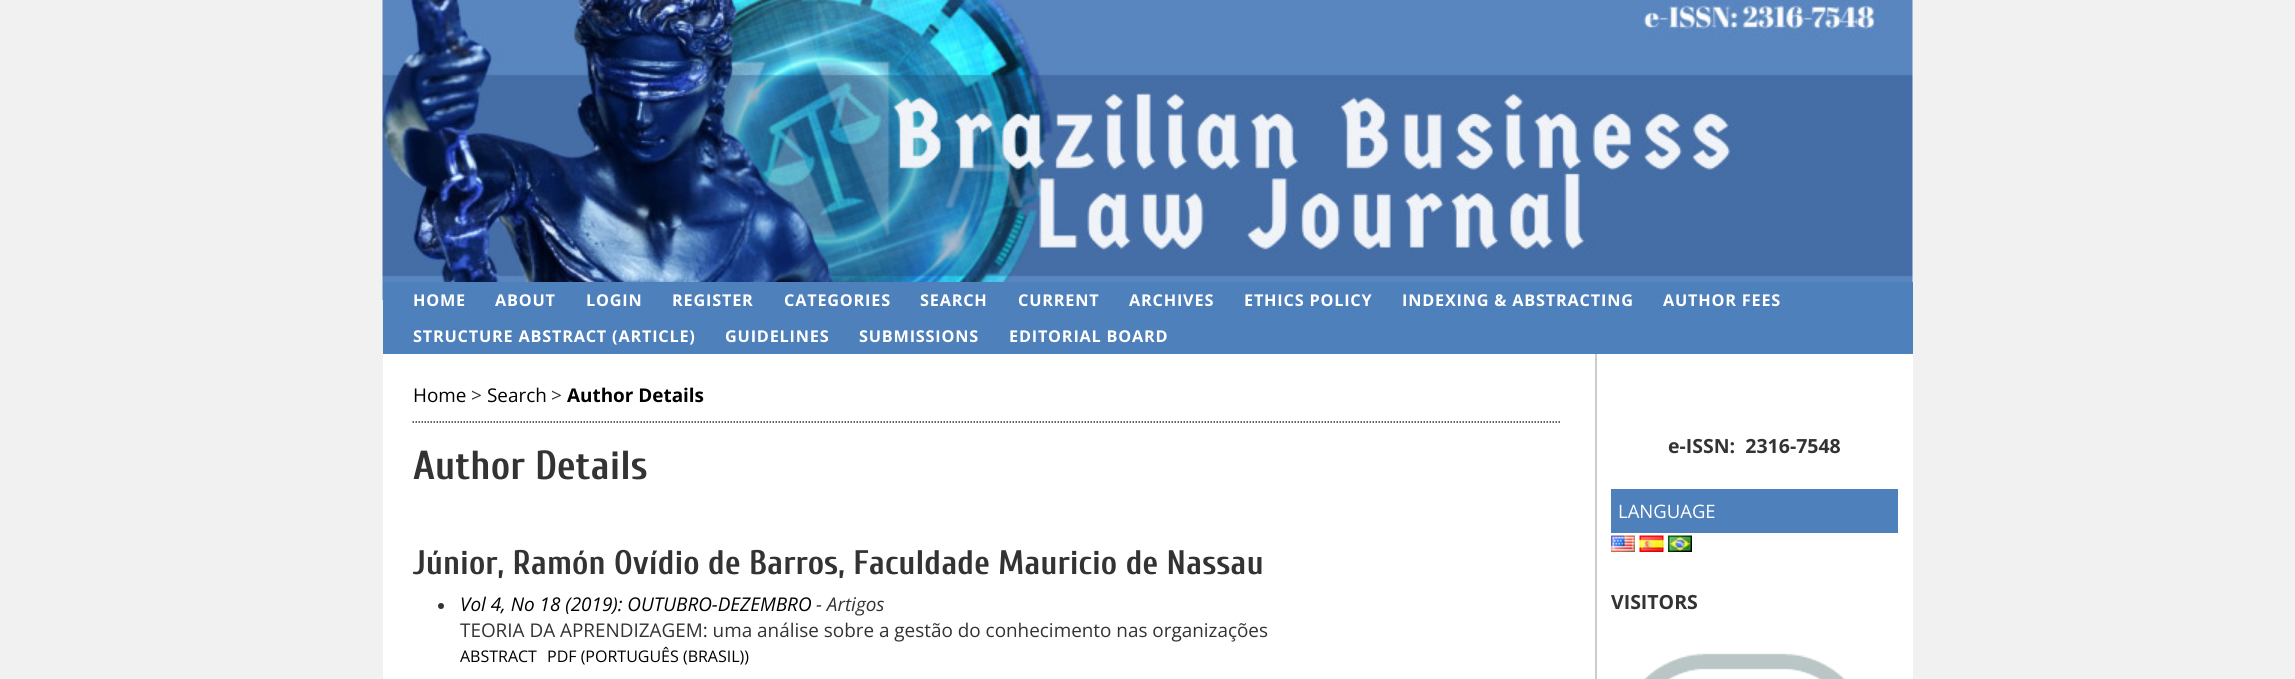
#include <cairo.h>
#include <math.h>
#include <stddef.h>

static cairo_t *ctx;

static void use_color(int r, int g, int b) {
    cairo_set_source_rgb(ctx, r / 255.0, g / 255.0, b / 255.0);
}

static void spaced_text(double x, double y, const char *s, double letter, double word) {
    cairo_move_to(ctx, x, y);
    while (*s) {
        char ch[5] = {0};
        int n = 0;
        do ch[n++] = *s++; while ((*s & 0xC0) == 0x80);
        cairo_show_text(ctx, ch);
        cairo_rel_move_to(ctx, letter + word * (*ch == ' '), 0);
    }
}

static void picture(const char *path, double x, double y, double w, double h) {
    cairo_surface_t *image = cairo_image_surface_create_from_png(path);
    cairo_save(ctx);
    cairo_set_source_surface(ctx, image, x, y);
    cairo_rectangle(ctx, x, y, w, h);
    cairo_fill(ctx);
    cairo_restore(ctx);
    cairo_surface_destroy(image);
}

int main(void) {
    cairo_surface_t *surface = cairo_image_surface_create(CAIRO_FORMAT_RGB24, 2295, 679);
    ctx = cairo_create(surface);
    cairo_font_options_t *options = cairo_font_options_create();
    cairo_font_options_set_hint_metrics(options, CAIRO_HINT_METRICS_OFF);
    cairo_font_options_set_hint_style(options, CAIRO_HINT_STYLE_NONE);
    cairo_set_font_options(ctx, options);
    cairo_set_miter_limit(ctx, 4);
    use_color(241, 241, 241);
    cairo_paint(ctx);
    picture("img1.png", 382, 0, 1531, 300);
    use_color(255, 255, 255);
    cairo_rectangle(ctx, 383, 354, 1530, 325);
    cairo_fill(ctx);
    use_color(78, 128, 187);
    cairo_rectangle(ctx, 383, 282, 1530, 72);
    cairo_fill(ctx);
    cairo_select_font_face(ctx, "Open Sans", CAIRO_FONT_SLANT_NORMAL, CAIRO_FONT_WEIGHT_BOLD);
    cairo_set_font_size(ctx, 16.25);
    use_color(255, 255, 255);
    spaced_text(413, 306, "HOME", 0.8, 0);
    spaced_text(495, 306, "ABOUT", 0.8, 0);
    spaced_text(586, 306, "LOGIN", 0.8, 0);
    spaced_text(672, 306, "REGISTER", 0.8, 0);
    spaced_text(784, 306, "CATEGORIES", 0.8, 0);
    spaced_text(920, 306, "SEARCH", 0.8, 0);
    spaced_text(1018, 306, "CURRENT", 0.8, 0);
    spaced_text(1129, 306, "ARCHIVES", 0.8, 0);
    spaced_text(1244, 306, "ETHICS POLICY", 0.8, 0);
    spaced_text(1402, 306, "INDEXING & ABSTRACTING", 0.8, 0);
    spaced_text(1663, 306, "AUTHOR FEES", 0.8, 0);
    spaced_text(413, 342, "STRUCTURE ABSTRACT (ARTICLE)", 0.8, 0);
    spaced_text(725, 342, "GUIDELINES", 0.8, 0);
    spaced_text(859, 342, "SUBMISSIONS", 0.8, 0);
    spaced_text(1009, 342, "EDITORIAL BOARD", 0.8, 0);
    cairo_new_path(ctx);
    cairo_move_to(ctx, 412.5, 422);
    cairo_line_to(ctx, 1560, 422);
    use_color(51, 51, 51);
    cairo_set_line_width(ctx, 1.5);
    cairo_set_dash(ctx, (double[]){1.5, 1.5}, 2, 0);
    cairo_stroke(ctx);
    cairo_select_font_face(ctx, "Open Sans", CAIRO_FONT_SLANT_NORMAL, CAIRO_FONT_WEIGHT_NORMAL);
    cairo_set_font_size(ctx, 18.9);
    use_color(0, 0, 0);
    cairo_move_to(ctx, 413, 402);
    cairo_show_text(ctx, "Home");
    use_color(51, 51, 51);
    cairo_move_to(ctx, 471, 402);
    cairo_show_text(ctx, ">");
    use_color(0, 0, 0);
    cairo_move_to(ctx, 487, 402);
    cairo_show_text(ctx, "Search");
    use_color(51, 51, 51);
    cairo_move_to(ctx, 551, 402);
    cairo_show_text(ctx, ">");
    cairo_select_font_face(ctx, "Open Sans", CAIRO_FONT_SLANT_NORMAL, CAIRO_FONT_WEIGHT_BOLD);
    use_color(0, 0, 0);
    cairo_move_to(ctx, 567, 402);
    cairo_show_text(ctx, "Author Details");
    cairo_select_font_face(ctx, "Cuprum", CAIRO_FONT_SLANT_NORMAL, CAIRO_FONT_WEIGHT_BOLD);
    cairo_set_font_size(ctx, 40.5);
    use_color(51, 51, 51);
    cairo_move_to(ctx, 413, 479);
    cairo_show_text(ctx, "Author Details");
    cairo_set_font_size(ctx, 34);
    cairo_move_to(ctx, 413, 574);
    cairo_show_text(ctx, "Júnior, Ramón Ovídio de Barros, Faculdade Mauricio de Nassau");
    cairo_new_path(ctx);
    cairo_arc(ctx, 441, 606, 3, 0, 2 * M_PI);
    cairo_fill(ctx);
    cairo_select_font_face(ctx, "Open Sans", CAIRO_FONT_SLANT_ITALIC, CAIRO_FONT_WEIGHT_NORMAL);
    cairo_set_font_size(ctx, 18.9);
    use_color(0, 0, 0);
    cairo_move_to(ctx, 460, 611);
    cairo_show_text(ctx, "Vol 4, No 18 (2019): OUTUBRO-DEZEMBRO");
    use_color(51, 51, 51);
    cairo_move_to(ctx, 816, 611);
    cairo_show_text(ctx, "- Artigos");
    cairo_select_font_face(ctx, "Open Sans", CAIRO_FONT_SLANT_NORMAL, CAIRO_FONT_WEIGHT_NORMAL);
    cairo_move_to(ctx, 460, 637);
    cairo_show_text(ctx, "TEORIA DA APRENDIZAGEM: uma análise sobre a gestão do conhecimento nas organizações");
    cairo_set_font_size(ctx, 16);
    use_color(0, 0, 0);
    cairo_move_to(ctx, 460, 662);
    cairo_show_text(ctx, "ABSTRACT");
    cairo_move_to(ctx, 547, 662);
    cairo_show_text(ctx, "PDF (PORTUGUÊS (BRASIL))");
    use_color(204, 204, 204);
    cairo_rectangle(ctx, 1595, 354, 2, 325);
    cairo_fill(ctx);
    cairo_select_font_face(ctx, "Open Sans", CAIRO_FONT_SLANT_NORMAL, CAIRO_FONT_WEIGHT_BOLD);
    cairo_set_font_size(ctx, 19.5);
    use_color(51, 51, 51);
    cairo_move_to(ctx, 1668, 453);
    cairo_show_text(ctx, "e-ISSN:  2316-7548");
    use_color(78, 128, 187);
    cairo_rectangle(ctx, 1611, 489, 287, 44);
    cairo_fill(ctx);
    cairo_select_font_face(ctx, "Open Sans", CAIRO_FONT_SLANT_NORMAL, CAIRO_FONT_WEIGHT_NORMAL);
    cairo_set_font_size(ctx, 18.5);
    use_color(255, 255, 255);
    cairo_move_to(ctx, 1618, 518);
    cairo_show_text(ctx, "LANGUAGE");
    picture("img2.png", 1611, 535, 24, 17);
    picture("img3.png", 1639, 535, 25, 17);
    picture("img4.png", 1668, 535, 24, 17);
    cairo_select_font_face(ctx, "Open Sans", CAIRO_FONT_SLANT_NORMAL, CAIRO_FONT_WEIGHT_BOLD);
    cairo_set_font_size(ctx, 19.5);
    use_color(51, 51, 51);
    cairo_move_to(ctx, 1611, 609);
    cairo_show_text(ctx, "VISITORS");
    picture("img5.png", 1644, 653, 201, 26);
    cairo_surface_write_to_png(surface, "result.png");
    cairo_font_options_destroy(options);
    cairo_destroy(ctx);
    cairo_surface_destroy(surface);
    return 0;
}
